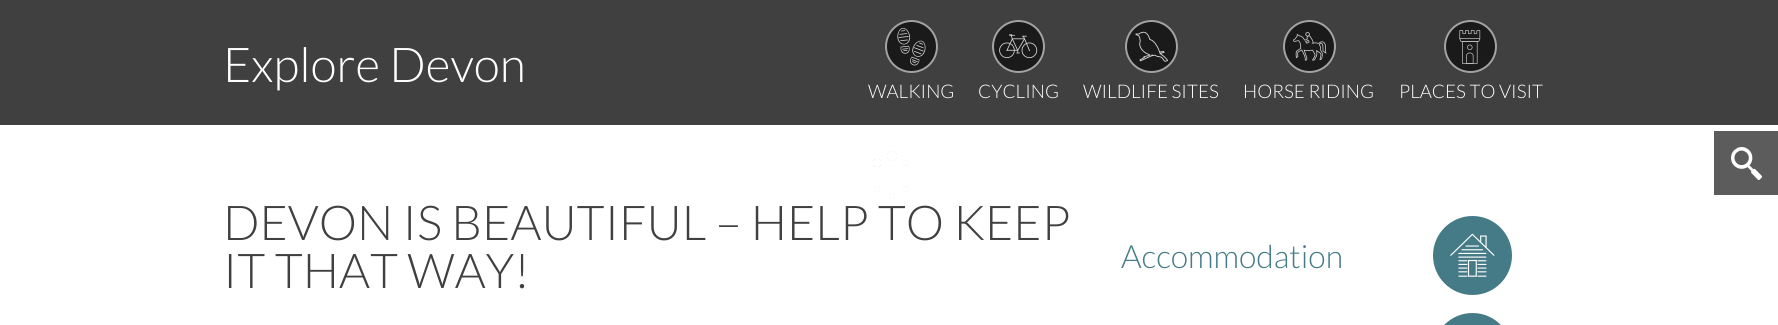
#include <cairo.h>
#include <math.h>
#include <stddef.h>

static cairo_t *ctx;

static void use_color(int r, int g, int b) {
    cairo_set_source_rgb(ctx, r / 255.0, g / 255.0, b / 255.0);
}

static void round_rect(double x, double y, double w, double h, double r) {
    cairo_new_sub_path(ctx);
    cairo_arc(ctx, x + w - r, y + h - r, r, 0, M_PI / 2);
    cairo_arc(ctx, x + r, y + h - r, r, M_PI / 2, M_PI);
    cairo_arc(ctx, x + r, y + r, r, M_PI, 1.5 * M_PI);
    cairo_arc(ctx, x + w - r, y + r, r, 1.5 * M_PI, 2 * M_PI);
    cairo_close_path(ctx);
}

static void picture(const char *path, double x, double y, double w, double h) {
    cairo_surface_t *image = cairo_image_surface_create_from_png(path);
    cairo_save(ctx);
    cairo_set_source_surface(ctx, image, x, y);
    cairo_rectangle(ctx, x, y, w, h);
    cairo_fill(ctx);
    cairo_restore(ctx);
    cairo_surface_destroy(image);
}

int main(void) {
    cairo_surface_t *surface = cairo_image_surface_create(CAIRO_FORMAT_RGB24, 1778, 325);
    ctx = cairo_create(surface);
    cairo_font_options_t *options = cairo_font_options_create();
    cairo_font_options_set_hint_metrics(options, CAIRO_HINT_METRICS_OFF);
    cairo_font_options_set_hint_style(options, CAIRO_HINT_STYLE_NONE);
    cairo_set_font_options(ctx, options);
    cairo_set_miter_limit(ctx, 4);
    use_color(255, 255, 255);
    cairo_paint(ctx);
    use_color(64, 64, 64);
    cairo_rectangle(ctx, 0, 0, 1778, 125);
    cairo_fill(ctx);
    cairo_select_font_face(ctx, "Lato Light", CAIRO_FONT_SLANT_NORMAL, CAIRO_FONT_WEIGHT_NORMAL);
    cairo_set_font_size(ctx, 48);
    use_color(255, 255, 255);
    cairo_move_to(ctx, 223, 82);
    cairo_show_text(ctx, "Explore Devon");
    use_color(26, 26, 26);
    cairo_new_path(ctx);
    cairo_arc(ctx, 911.5, 46.5, 26.5, 0, 2 * M_PI);
    cairo_fill(ctx);
    cairo_arc(ctx, 911.5, 46.5, 25.5, 0, 2 * M_PI);
    cairo_set_source_rgba(ctx, 1, 1, 1, 0.6);
    cairo_stroke(ctx);
    picture("img1.png", 897, 28, 29, 38);
    cairo_set_font_size(ctx, 18.75);
    use_color(255, 255, 255);
    cairo_move_to(ctx, 868, 98);
    cairo_show_text(ctx, "WALKING");
    use_color(26, 26, 26);
    cairo_new_path(ctx);
    cairo_arc(ctx, 1018.5, 46.5, 26.5, 0, 2 * M_PI);
    cairo_fill(ctx);
    cairo_arc(ctx, 1018.5, 46.5, 25.5, 0, 2 * M_PI);
    cairo_set_source_rgba(ctx, 1, 1, 1, 0.6);
    cairo_stroke(ctx);
    picture("img2.png", 999, 34, 39, 25);
    use_color(255, 255, 255);
    cairo_move_to(ctx, 978, 98);
    cairo_show_text(ctx, "CYCLING");
    use_color(26, 26, 26);
    cairo_new_path(ctx);
    cairo_arc(ctx, 1151.5, 46.5, 26.5, 0, 2 * M_PI);
    cairo_fill(ctx);
    cairo_arc(ctx, 1151.5, 46.5, 25.5, 0, 2 * M_PI);
    cairo_set_source_rgba(ctx, 1, 1, 1, 0.6);
    cairo_stroke(ctx);
    picture("img3.png", 1135, 31, 33, 31);
    use_color(255, 255, 255);
    cairo_move_to(ctx, 1083, 98);
    cairo_show_text(ctx, "WILDLIFE SITES");
    use_color(26, 26, 26);
    cairo_new_path(ctx);
    cairo_arc(ctx, 1309.5, 46.5, 26.5, 0, 2 * M_PI);
    cairo_fill(ctx);
    cairo_arc(ctx, 1309.5, 46.5, 25.5, 0, 2 * M_PI);
    cairo_set_source_rgba(ctx, 1, 1, 1, 0.6);
    cairo_stroke(ctx);
    picture("img4.png", 1293, 32, 34, 29);
    use_color(255, 255, 255);
    cairo_move_to(ctx, 1243, 98);
    cairo_show_text(ctx, "HORSE RIDING");
    use_color(26, 26, 26);
    cairo_new_path(ctx);
    cairo_arc(ctx, 1470.5, 46.5, 26.5, 0, 2 * M_PI);
    cairo_fill(ctx);
    cairo_arc(ctx, 1470.5, 46.5, 25.5, 0, 2 * M_PI);
    cairo_set_source_rgba(ctx, 1, 1, 1, 0.6);
    cairo_stroke(ctx);
    picture("img5.png", 1459, 30, 22, 34);
    use_color(255, 255, 255);
    cairo_move_to(ctx, 1399, 98);
    cairo_show_text(ctx, "PLACES TO VISIT");
    use_color(92, 92, 92);
    cairo_rectangle(ctx, 1714, 131, 64, 64);
    cairo_fill(ctx);
    picture("img6.png", 1731, 147, 31, 33);
    cairo_set_font_size(ctx, 48);
    use_color(64, 64, 64);
    cairo_move_to(ctx, 223, 240);
    cairo_show_text(ctx, "DEVON IS BEAUTIFUL – HELP TO KEEP");
    cairo_move_to(ctx, 223, 288);
    cairo_show_text(ctx, "IT THAT WAY!");
    cairo_set_font_size(ctx, 32);
    use_color(69, 123, 135);
    cairo_move_to(ctx, 1121, 268);
    cairo_show_text(ctx, "Accommodation");
    cairo_new_path(ctx);
    cairo_arc(ctx, 1472.5, 255.5, 39.5, 0, 2 * M_PI);
    cairo_fill(ctx);
    picture("img7.png", 1450, 233, 45, 44);
    round_rect(1433, 313, 79, 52, 39.5);
    cairo_fill(ctx);
    picture("img8.png", 869, 151, 45, 48);
    cairo_surface_write_to_png(surface, "result.png");
    cairo_font_options_destroy(options);
    cairo_destroy(ctx);
    cairo_surface_destroy(surface);
    return 0;
}
